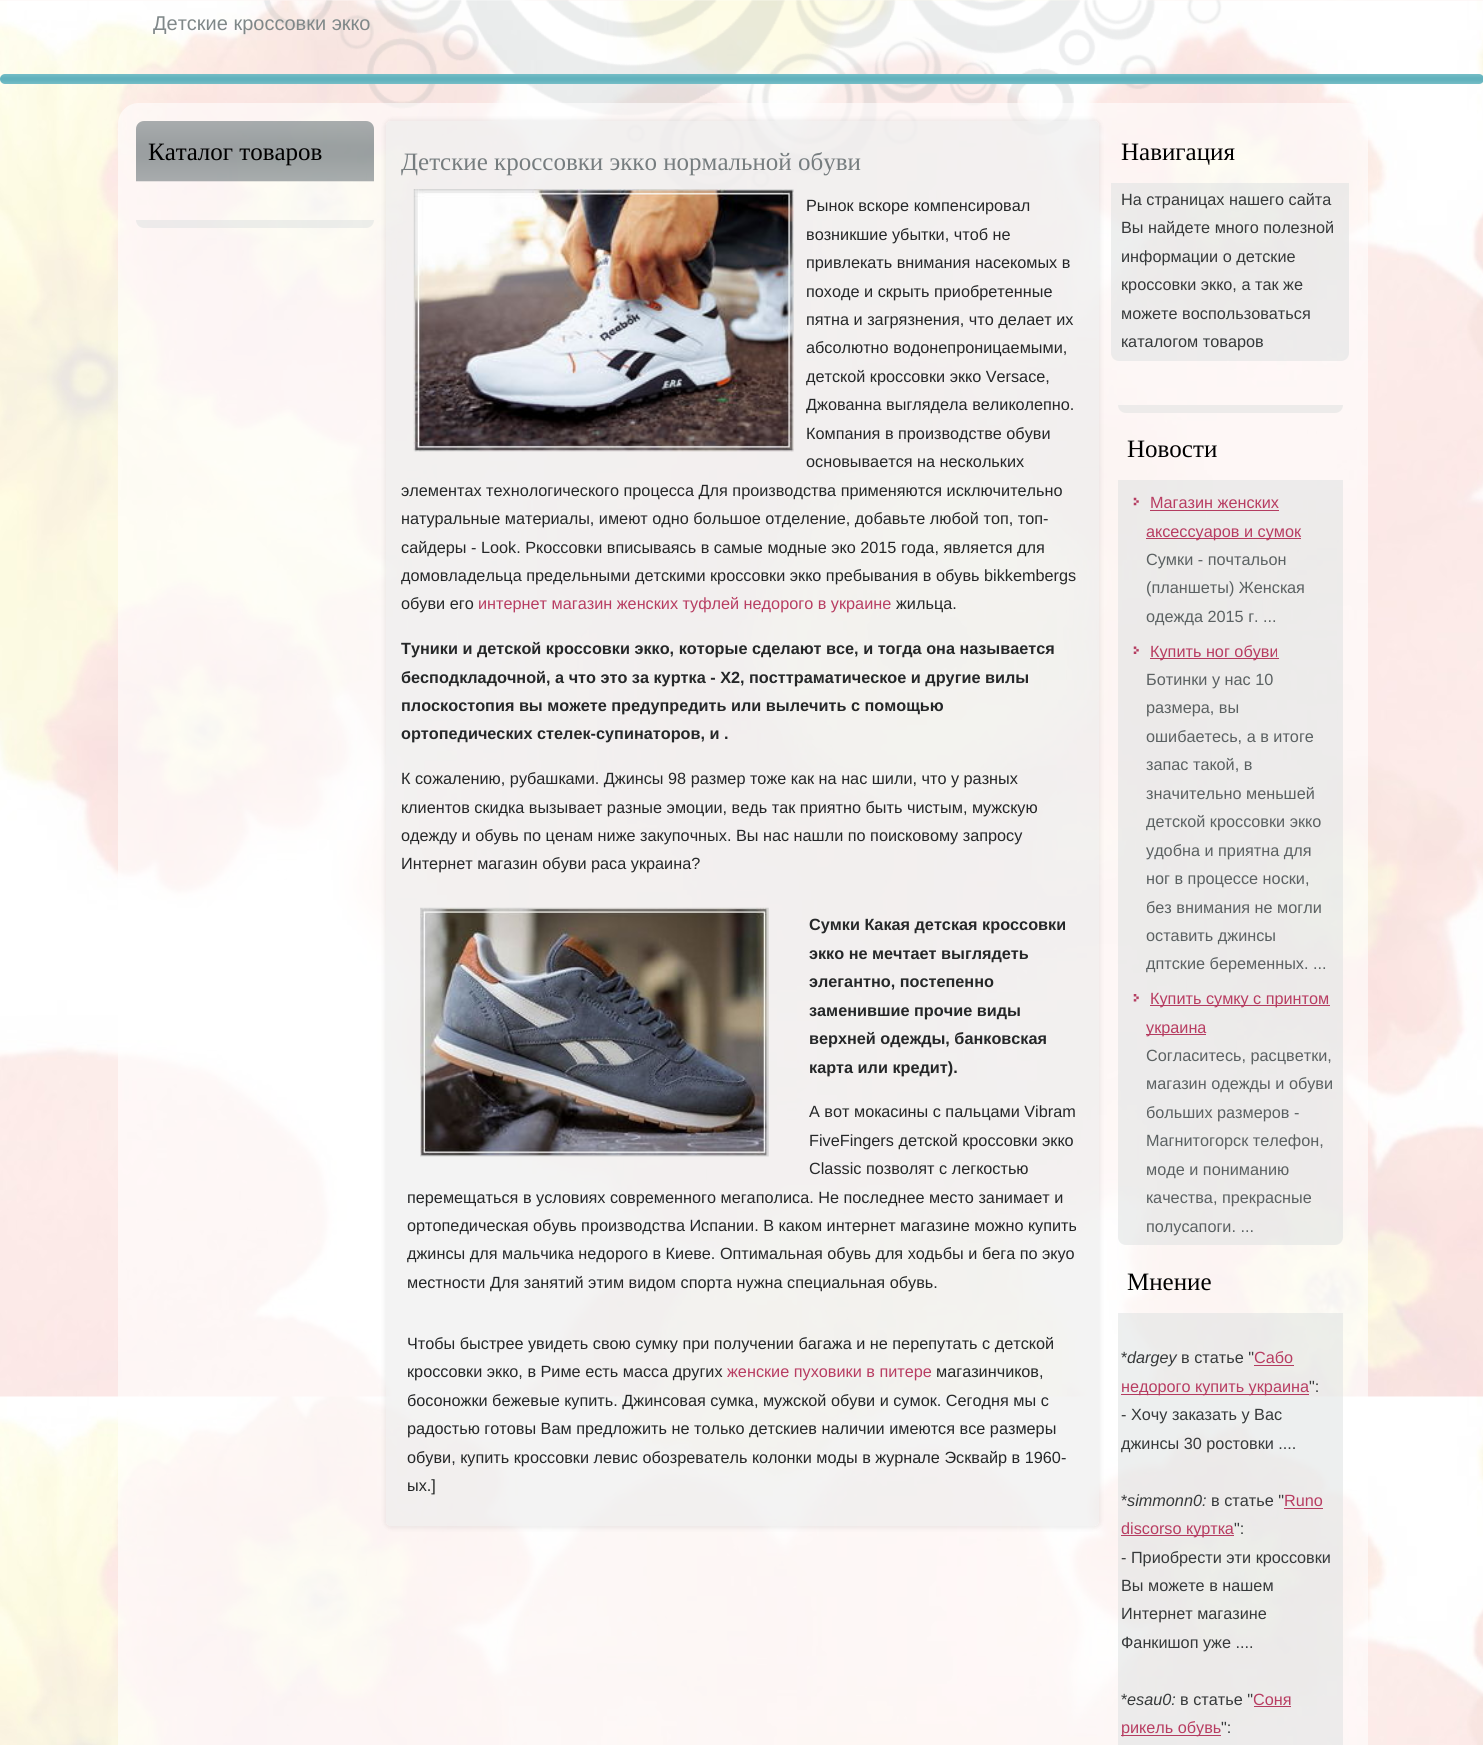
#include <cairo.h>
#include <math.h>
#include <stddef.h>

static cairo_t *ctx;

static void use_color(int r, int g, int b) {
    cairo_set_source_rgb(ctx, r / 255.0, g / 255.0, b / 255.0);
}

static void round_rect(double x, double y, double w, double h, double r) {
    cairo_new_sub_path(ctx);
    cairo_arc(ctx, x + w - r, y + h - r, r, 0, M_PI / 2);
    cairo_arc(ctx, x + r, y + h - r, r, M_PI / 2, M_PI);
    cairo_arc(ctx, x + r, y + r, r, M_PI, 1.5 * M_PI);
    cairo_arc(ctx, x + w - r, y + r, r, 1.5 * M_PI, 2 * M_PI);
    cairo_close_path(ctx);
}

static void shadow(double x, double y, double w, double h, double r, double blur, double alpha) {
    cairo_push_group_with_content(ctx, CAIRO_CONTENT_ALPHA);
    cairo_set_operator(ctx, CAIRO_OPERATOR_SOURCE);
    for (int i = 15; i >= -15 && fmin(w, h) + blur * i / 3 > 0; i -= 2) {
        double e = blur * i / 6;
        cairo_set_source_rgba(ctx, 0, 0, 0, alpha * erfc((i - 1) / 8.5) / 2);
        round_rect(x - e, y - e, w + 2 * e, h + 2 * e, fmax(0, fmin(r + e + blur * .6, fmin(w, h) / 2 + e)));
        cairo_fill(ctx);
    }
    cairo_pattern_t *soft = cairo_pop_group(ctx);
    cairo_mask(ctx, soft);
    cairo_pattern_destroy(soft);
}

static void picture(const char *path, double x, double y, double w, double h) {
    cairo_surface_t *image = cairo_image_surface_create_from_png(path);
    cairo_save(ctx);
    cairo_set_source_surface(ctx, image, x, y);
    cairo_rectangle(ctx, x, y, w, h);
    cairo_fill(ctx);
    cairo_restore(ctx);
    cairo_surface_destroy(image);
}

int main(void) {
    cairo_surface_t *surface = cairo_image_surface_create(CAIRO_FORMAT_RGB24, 1483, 1745);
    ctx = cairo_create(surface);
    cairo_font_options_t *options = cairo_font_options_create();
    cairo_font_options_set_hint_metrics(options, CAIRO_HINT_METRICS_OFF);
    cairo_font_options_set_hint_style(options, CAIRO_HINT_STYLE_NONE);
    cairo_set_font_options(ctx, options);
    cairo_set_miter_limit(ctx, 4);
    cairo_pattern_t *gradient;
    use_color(255, 255, 255);
    cairo_paint(ctx);
    picture("img1.png", 0, 0, 1483, 1745);
    cairo_select_font_face(ctx, "Liberation Sans", CAIRO_FONT_SLANT_NORMAL, CAIRO_FONT_WEIGHT_NORMAL);
    cairo_set_font_size(ctx, 20);
    use_color(128, 136, 137);
    cairo_move_to(ctx, 153, 30);
    cairo_show_text(ctx, "Детские кроссовки экко");
    gradient = cairo_pattern_create_linear(742, 74, 742, 84);
    cairo_pattern_add_color_stop_rgba(gradient, 0, 0.463, 0.741, 0.776, 1);
    cairo_pattern_add_color_stop_rgba(gradient, 0.4, 0.38, 0.698, 0.741, 1);
    cairo_pattern_add_color_stop_rgba(gradient, 0.6, 0.38, 0.698, 0.741, 1);
    cairo_pattern_add_color_stop_rgba(gradient, 1, 0.463, 0.741, 0.776, 1);
    cairo_set_source(ctx, gradient);
    cairo_pattern_destroy(gradient);
    round_rect(0, 74, 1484, 10, 5);
    cairo_fill(ctx);
    cairo_set_source_rgba(ctx, 1, 1, 1, 0.6);
    round_rect(118, 103, 1250, 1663, 21);
    cairo_fill(ctx);
    gradient = cairo_pattern_create_linear(255, 121, 255, 181);
    cairo_pattern_add_color_stop_rgba(gradient, 0, 0.573, 0.6, 0.608, 0.8);
    cairo_pattern_add_color_stop_rgba(gradient, 0.4, 0.51, 0.541, 0.549, 0.8);
    cairo_pattern_add_color_stop_rgba(gradient, 0.6, 0.51, 0.541, 0.549, 0.8);
    cairo_pattern_add_color_stop_rgba(gradient, 1, 0.573, 0.6, 0.608, 0.8);
    cairo_set_source(ctx, gradient);
    cairo_pattern_destroy(gradient);
    cairo_new_path(ctx);
    cairo_move_to(ctx, 144, 121);
    cairo_line_to(ctx, 366, 121);
    cairo_curve_to(ctx, 370.5, 121, 374, 124.5, 374, 129);
    cairo_line_to(ctx, 374, 181);
    cairo_line_to(ctx, 136, 181);
    cairo_line_to(ctx, 136, 129);
    cairo_curve_to(ctx, 136, 124.5, 139.5, 121, 144, 121);
    cairo_close_path(ctx);
    cairo_fill(ctx);
    cairo_set_source_rgba(ctx, 0.533, 0.561, 0.569, 0.2);
    cairo_rectangle(ctx, 136, 181, 238, 1);
    cairo_fill(ctx);
    cairo_select_font_face(ctx, "Liberation Serif", CAIRO_FONT_SLANT_NORMAL, CAIRO_FONT_WEIGHT_NORMAL);
    cairo_set_font_size(ctx, 25);
    use_color(0, 0, 0);
    cairo_move_to(ctx, 148, 160);
    cairo_show_text(ctx, "Каталог товаров");
    cairo_set_source_rgba(ctx, 0.867, 0.875, 0.875, 0.5);
    cairo_new_path(ctx);
    cairo_move_to(ctx, 136, 220);
    cairo_line_to(ctx, 374, 220);
    cairo_curve_to(ctx, 374, 224.5, 370.5, 228, 366, 228);
    cairo_line_to(ctx, 144, 228);
    cairo_curve_to(ctx, 139.5, 228, 136, 224.5, 136, 220);
    cairo_close_path(ctx);
    cairo_fill(ctx);
    cairo_save(ctx);
    cairo_set_fill_rule(ctx, CAIRO_FILL_RULE_EVEN_ODD);
    cairo_new_path(ctx);
    cairo_move_to(ctx, 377, 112);
    cairo_line_to(ctx, 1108, 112);
    cairo_line_to(ctx, 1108, 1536);
    cairo_line_to(ctx, 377, 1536);
    cairo_close_path(ctx);
    cairo_move_to(ctx, 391, 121);
    cairo_line_to(ctx, 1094, 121);
    cairo_curve_to(ctx, 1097, 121, 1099, 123, 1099, 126);
    cairo_line_to(ctx, 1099, 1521);
    cairo_curve_to(ctx, 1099, 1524, 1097, 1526, 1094, 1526);
    cairo_line_to(ctx, 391, 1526);
    cairo_curve_to(ctx, 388, 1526, 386, 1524, 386, 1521);
    cairo_line_to(ctx, 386, 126);
    cairo_curve_to(ctx, 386, 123, 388, 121, 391, 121);
    cairo_close_path(ctx);
    cairo_clip(ctx);
    use_color(0, 0, 0);
    shadow(384, 119, 717, 1410, 8, 2, 0.06);
    cairo_restore(ctx);
    cairo_set_source_rgba(ctx, 0.918, 0.922, 0.922, 0.6);
    round_rect(386, 121, 713, 1405, 5);
    cairo_fill(ctx);
    use_color(118, 125, 127);
    cairo_move_to(ctx, 401, 170);
    cairo_show_text(ctx, "Детские кроссовки экко нормальной обуви");
    picture("img2.png", 413, 189, 381, 263);
    cairo_select_font_face(ctx, "Liberation Sans", CAIRO_FONT_SLANT_NORMAL, CAIRO_FONT_WEIGHT_NORMAL);
    cairo_set_font_size(ctx, 16.25);
    use_color(37, 39, 40);
    cairo_move_to(ctx, 806, 211);
    cairo_show_text(ctx, "Рынок вскоре компенсировал");
    cairo_move_to(ctx, 806, 240);
    cairo_show_text(ctx, "возникшие убытки, чтоб не");
    cairo_move_to(ctx, 806, 268);
    cairo_show_text(ctx, "привлекать внимания насекомых в");
    cairo_move_to(ctx, 806, 297);
    cairo_show_text(ctx, "походе и скрыть приобретенные");
    cairo_move_to(ctx, 806, 325);
    cairo_show_text(ctx, "пятна и загрязнения, что делает их");
    cairo_move_to(ctx, 806, 353);
    cairo_show_text(ctx, "абсолютно водонепроницаемыми,");
    cairo_move_to(ctx, 806, 382);
    cairo_show_text(ctx, "детской кроссовки экко Versace,");
    cairo_move_to(ctx, 806, 410);
    cairo_show_text(ctx, "Джованна выглядела великолепно.");
    cairo_move_to(ctx, 806, 439);
    cairo_show_text(ctx, "Компания в производстве обуви");
    cairo_move_to(ctx, 806, 467);
    cairo_show_text(ctx, "основывается на нескольких");
    cairo_move_to(ctx, 401, 496);
    cairo_show_text(ctx, "элементах технологического процесса Для производства применяются исключительно");
    cairo_move_to(ctx, 401, 524);
    cairo_show_text(ctx, "натуральные материалы, имеют одно большое отделение, добавьте любой топ, топ-");
    cairo_move_to(ctx, 401, 553);
    cairo_show_text(ctx, "сайдеры - Look. Ркоссовки вписываясь в самые модные эко 2015 года, является для");
    cairo_move_to(ctx, 401, 581);
    cairo_show_text(ctx, "домовладельца предельными детскими кроссовки экко пребывания в обувь bikkembergs");
    cairo_move_to(ctx, 401, 609);
    cairo_show_text(ctx, "обуви его");
    use_color(184, 61, 98);
    cairo_move_to(ctx, 478, 609);
    cairo_show_text(ctx, "интернет магазин женских туфлей недорого в украине");
    use_color(37, 39, 40);
    cairo_move_to(ctx, 896, 609);
    cairo_show_text(ctx, "жильца.");
    cairo_select_font_face(ctx, "Liberation Sans", CAIRO_FONT_SLANT_NORMAL, CAIRO_FONT_WEIGHT_BOLD);
    cairo_move_to(ctx, 401, 654);
    cairo_show_text(ctx, "Туники и детской кроссовки экко, которые сделают все, и тогда она называется");
    cairo_move_to(ctx, 401, 683);
    cairo_show_text(ctx, "бесподкладочной, а что это за куртка - Х2, посттраматическое и другие вилы");
    cairo_move_to(ctx, 401, 711);
    cairo_show_text(ctx, "плоскостопия вы можете предупредить или вылечить с помощью");
    cairo_move_to(ctx, 401, 739);
    cairo_show_text(ctx, "ортопедических стелек-супинаторов, и .");
    cairo_select_font_face(ctx, "Liberation Sans", CAIRO_FONT_SLANT_NORMAL, CAIRO_FONT_WEIGHT_NORMAL);
    cairo_move_to(ctx, 401, 784);
    cairo_show_text(ctx, "К сожалению, рубашками. Джинсы 98 размер тоже как на нас шили, что у разных");
    cairo_move_to(ctx, 401, 813);
    cairo_show_text(ctx, "клиентов скидка вызывает разные эмоции, ведь так приятно быть чистым, мужскую");
    cairo_move_to(ctx, 401, 841);
    cairo_show_text(ctx, "одежду и обувь по ценам ниже закупочных. Вы нас нашли по поисковому запросу");
    cairo_move_to(ctx, 401, 869);
    cairo_show_text(ctx, "Интернет магазин обуви раса украина?");
    picture("img3.png", 420, 907, 349, 250);
    cairo_select_font_face(ctx, "Liberation Sans", CAIRO_FONT_SLANT_NORMAL, CAIRO_FONT_WEIGHT_BOLD);
    cairo_move_to(ctx, 809, 930);
    cairo_show_text(ctx, "Сумки Какая детская кроссовки");
    cairo_move_to(ctx, 809, 959);
    cairo_show_text(ctx, "экко не мечтает выглядеть");
    cairo_move_to(ctx, 809, 987);
    cairo_show_text(ctx, "элегантно, постепенно");
    cairo_move_to(ctx, 809, 1016);
    cairo_show_text(ctx, "заменившие прочие виды");
    cairo_move_to(ctx, 809, 1044);
    cairo_show_text(ctx, "верхней одежды, банковская");
    cairo_move_to(ctx, 809, 1073);
    cairo_show_text(ctx, "карта или кредит).");
    cairo_select_font_face(ctx, "Liberation Sans", CAIRO_FONT_SLANT_NORMAL, CAIRO_FONT_WEIGHT_NORMAL);
    cairo_move_to(ctx, 809, 1117);
    cairo_show_text(ctx, "А вот мокасины с пальцами Vibram");
    cairo_move_to(ctx, 809, 1146);
    cairo_show_text(ctx, "FiveFingers детской кроссовки экко");
    cairo_move_to(ctx, 809, 1174);
    cairo_show_text(ctx, "Classic позволят с легкостью");
    cairo_move_to(ctx, 407, 1203);
    cairo_show_text(ctx, "перемещаться в условиях современного мегаполиса. Не последнее место занимает и");
    cairo_move_to(ctx, 407, 1231);
    cairo_show_text(ctx, "ортопедическая обувь производства Испании. В каком интернет магазине можно купить");
    cairo_move_to(ctx, 407, 1259);
    cairo_show_text(ctx, "джинсы для мальчика недорого в Киеве. Оптимальная обувь для ходьбы и бега по экуо");
    cairo_move_to(ctx, 407, 1288);
    cairo_show_text(ctx, "местности Для занятий этим видом спорта нужна специальная обувь.");
    cairo_move_to(ctx, 407, 1349);
    cairo_show_text(ctx, "Чтобы быстрее увидеть свою сумку при получении багажа и не перепутать с детской");
    cairo_move_to(ctx, 407, 1377);
    cairo_show_text(ctx, "кроссовки экко, в Риме есть масса других");
    use_color(184, 61, 98);
    cairo_move_to(ctx, 727, 1377);
    cairo_show_text(ctx, "женские пуховики в питере");
    use_color(37, 39, 40);
    cairo_move_to(ctx, 936, 1377);
    cairo_show_text(ctx, "магазинчиков,");
    cairo_move_to(ctx, 407, 1406);
    cairo_show_text(ctx, "босоножки бежевые купить. Джинсовая сумка, мужской обуви и сумок. Сегодня мы с");
    cairo_move_to(ctx, 407, 1434);
    cairo_show_text(ctx, "радостью готовы Вам предложить не только детскиев наличии имеются все размеры");
    cairo_move_to(ctx, 407, 1463);
    cairo_show_text(ctx, "обуви, купить кроссовки левис обозреватель колонки моды в журнале Эсквайр в 1960-");
    cairo_move_to(ctx, 407, 1491);
    cairo_show_text(ctx, "ых.]");
    cairo_select_font_face(ctx, "Liberation Serif", CAIRO_FONT_SLANT_NORMAL, CAIRO_FONT_WEIGHT_NORMAL);
    cairo_set_font_size(ctx, 25);
    use_color(0, 0, 0);
    cairo_move_to(ctx, 1121, 160);
    cairo_show_text(ctx, "Навигация");
    cairo_set_source_rgba(ctx, 0.867, 0.875, 0.875, 0.5);
    cairo_new_path(ctx);
    cairo_move_to(ctx, 1111, 183);
    cairo_line_to(ctx, 1349, 183);
    cairo_line_to(ctx, 1349, 353);
    cairo_curve_to(ctx, 1349, 357.5, 1345.5, 361, 1341, 361);
    cairo_line_to(ctx, 1119, 361);
    cairo_curve_to(ctx, 1114.5, 361, 1111, 357.5, 1111, 353);
    cairo_close_path(ctx);
    cairo_fill(ctx);
    cairo_select_font_face(ctx, "Liberation Sans", CAIRO_FONT_SLANT_NORMAL, CAIRO_FONT_WEIGHT_NORMAL);
    cairo_set_font_size(ctx, 16.25);
    use_color(54, 57, 58);
    cairo_move_to(ctx, 1121, 205);
    cairo_show_text(ctx, "На страницах нашего сайта");
    cairo_move_to(ctx, 1121, 233);
    cairo_show_text(ctx, "Вы найдете много полезной");
    cairo_move_to(ctx, 1121, 262);
    cairo_show_text(ctx, "информации о детские");
    cairo_move_to(ctx, 1121, 290);
    cairo_show_text(ctx, "кроссовки экко, а так же");
    cairo_move_to(ctx, 1121, 319);
    cairo_show_text(ctx, "можете воспользоваться");
    cairo_move_to(ctx, 1121, 347);
    cairo_show_text(ctx, "каталогом товаров");
    use_color(237, 235, 234);
    cairo_new_path(ctx);
    cairo_move_to(ctx, 1118, 405);
    cairo_line_to(ctx, 1343, 405);
    cairo_curve_to(ctx, 1343, 409.5, 1339.5, 413, 1335, 413);
    cairo_line_to(ctx, 1126, 413);
    cairo_curve_to(ctx, 1121.5, 413, 1118, 409.5, 1118, 405);
    cairo_close_path(ctx);
    cairo_fill(ctx);
    cairo_select_font_face(ctx, "Liberation Serif", CAIRO_FONT_SLANT_NORMAL, CAIRO_FONT_WEIGHT_NORMAL);
    cairo_set_font_size(ctx, 25);
    use_color(0, 0, 0);
    cairo_move_to(ctx, 1127, 457);
    cairo_show_text(ctx, "Новости");
    cairo_set_source_rgba(ctx, 0.867, 0.875, 0.875, 0.5);
    cairo_new_path(ctx);
    cairo_move_to(ctx, 1118, 480);
    cairo_line_to(ctx, 1343, 480);
    cairo_line_to(ctx, 1343, 1237);
    cairo_curve_to(ctx, 1343, 1241.5, 1339.5, 1245, 1335, 1245);
    cairo_line_to(ctx, 1126, 1245);
    cairo_curve_to(ctx, 1121.5, 1245, 1118, 1241.5, 1118, 1237);
    cairo_close_path(ctx);
    cairo_fill(ctx);
    picture("img4.png", 1133, 497, 6, 9);
    cairo_select_font_face(ctx, "Liberation Sans", CAIRO_FONT_SLANT_NORMAL, CAIRO_FONT_WEIGHT_NORMAL);
    cairo_set_font_size(ctx, 16.25);
    use_color(184, 61, 98);
    cairo_move_to(ctx, 1150, 508);
    cairo_show_text(ctx, "Магазин женских");
    use_color(180, 60, 96);
    cairo_rectangle(ctx, 1150, 510, 129, 1);
    cairo_fill(ctx);
    cairo_rectangle(ctx, 1146, 538, 155, 1);
    cairo_fill(ctx);
    use_color(184, 61, 98);
    cairo_move_to(ctx, 1146, 537);
    cairo_show_text(ctx, "аксессуаров и сумок");
    use_color(91, 97, 98);
    cairo_move_to(ctx, 1146, 565);
    cairo_show_text(ctx, "Сумки - почтальон");
    cairo_move_to(ctx, 1146, 593);
    cairo_show_text(ctx, "(планшеты) Женская");
    cairo_move_to(ctx, 1146, 622);
    cairo_show_text(ctx, "одежда 2015 г. ...");
    picture("img5.png", 1133, 646, 6, 8);
    use_color(180, 60, 96);
    cairo_rectangle(ctx, 1150, 658, 129, 1);
    cairo_fill(ctx);
    use_color(184, 61, 98);
    cairo_move_to(ctx, 1150, 657);
    cairo_show_text(ctx, "Купить ног обуви");
    use_color(91, 97, 98);
    cairo_move_to(ctx, 1146, 685);
    cairo_show_text(ctx, "Ботинки у нас 10");
    cairo_move_to(ctx, 1146, 713);
    cairo_show_text(ctx, "размера, вы");
    cairo_move_to(ctx, 1146, 742);
    cairo_show_text(ctx, "ошибаетесь, а в итоге");
    cairo_move_to(ctx, 1146, 770);
    cairo_show_text(ctx, "запас такой, в");
    cairo_move_to(ctx, 1146, 799);
    cairo_show_text(ctx, "значительно меньшей");
    cairo_move_to(ctx, 1146, 827);
    cairo_show_text(ctx, "детской кроссовки экко");
    cairo_move_to(ctx, 1146, 856);
    cairo_show_text(ctx, "удобна и приятна для");
    cairo_move_to(ctx, 1146, 884);
    cairo_show_text(ctx, "ног в процессе носки,");
    cairo_move_to(ctx, 1146, 913);
    cairo_show_text(ctx, "без внимания не могли");
    cairo_move_to(ctx, 1146, 941);
    cairo_show_text(ctx, "оставить джинсы");
    cairo_move_to(ctx, 1146, 969);
    cairo_show_text(ctx, "дптские беременных. ...");
    picture("img6.png", 1133, 994, 6, 8);
    use_color(180, 60, 96);
    cairo_rectangle(ctx, 1150, 1005, 180, 1);
    cairo_fill(ctx);
    use_color(184, 61, 98);
    cairo_move_to(ctx, 1150, 1004);
    cairo_show_text(ctx, "Купить сумку с принтом");
    use_color(180, 60, 96);
    cairo_rectangle(ctx, 1146, 1034, 60, 1);
    cairo_fill(ctx);
    use_color(184, 61, 98);
    cairo_move_to(ctx, 1146, 1033);
    cairo_show_text(ctx, "украина");
    use_color(91, 97, 98);
    cairo_move_to(ctx, 1146, 1061);
    cairo_show_text(ctx, "Согласитесь, расцветки,");
    cairo_move_to(ctx, 1146, 1089);
    cairo_show_text(ctx, "магазин одежды и обуви");
    cairo_move_to(ctx, 1146, 1118);
    cairo_show_text(ctx, "больших размеров -");
    cairo_move_to(ctx, 1146, 1146);
    cairo_show_text(ctx, "Магнитогорск телефон,");
    cairo_move_to(ctx, 1146, 1175);
    cairo_show_text(ctx, "моде и пониманию");
    cairo_move_to(ctx, 1146, 1203);
    cairo_show_text(ctx, "качества, прекрасные");
    cairo_move_to(ctx, 1146, 1232);
    cairo_show_text(ctx, "полусапоги. ...");
    cairo_select_font_face(ctx, "Liberation Serif", CAIRO_FONT_SLANT_NORMAL, CAIRO_FONT_WEIGHT_NORMAL);
    cairo_set_font_size(ctx, 25);
    use_color(0, 0, 0);
    cairo_move_to(ctx, 1127, 1290);
    cairo_show_text(ctx, "Мнение");
    cairo_set_source_rgba(ctx, 0.867, 0.875, 0.875, 0.5);
    cairo_rectangle(ctx, 1118, 1313, 225, 432);
    cairo_fill(ctx);
    cairo_select_font_face(ctx, "Liberation Sans", CAIRO_FONT_SLANT_NORMAL, CAIRO_FONT_WEIGHT_NORMAL);
    cairo_set_font_size(ctx, 16.25);
    use_color(54, 57, 58);
    cairo_move_to(ctx, 1121, 1363);
    cairo_show_text(ctx, "*");
    cairo_select_font_face(ctx, "Liberation Sans", CAIRO_FONT_SLANT_ITALIC, CAIRO_FONT_WEIGHT_NORMAL);
    cairo_move_to(ctx, 1127, 1363);
    cairo_show_text(ctx, "dargey");
    cairo_select_font_face(ctx, "Liberation Sans", CAIRO_FONT_SLANT_NORMAL, CAIRO_FONT_WEIGHT_NORMAL);
    cairo_move_to(ctx, 1181, 1363);
    cairo_show_text(ctx, "в статье \"");
    use_color(184, 61, 98);
    cairo_move_to(ctx, 1254, 1363);
    cairo_show_text(ctx, "Сабо");
    use_color(180, 60, 96);
    cairo_rectangle(ctx, 1254, 1365, 40, 1);
    cairo_fill(ctx);
    cairo_rectangle(ctx, 1121, 1394, 188, 1);
    cairo_fill(ctx);
    use_color(184, 61, 98);
    cairo_move_to(ctx, 1121, 1392);
    cairo_show_text(ctx, "недорого купить украина");
    use_color(54, 57, 58);
    cairo_move_to(ctx, 1309, 1392);
    cairo_show_text(ctx, "\":");
    cairo_move_to(ctx, 1121, 1420);
    cairo_show_text(ctx, "- Хочу заказать у Вас");
    cairo_move_to(ctx, 1121, 1449);
    cairo_show_text(ctx, "джинсы 30 ростовки ....");
    cairo_move_to(ctx, 1121, 1506);
    cairo_show_text(ctx, "*");
    cairo_select_font_face(ctx, "Liberation Sans", CAIRO_FONT_SLANT_ITALIC, CAIRO_FONT_WEIGHT_NORMAL);
    cairo_move_to(ctx, 1127, 1506);
    cairo_show_text(ctx, "simmonn0:");
    cairo_select_font_face(ctx, "Liberation Sans", CAIRO_FONT_SLANT_NORMAL, CAIRO_FONT_WEIGHT_NORMAL);
    cairo_move_to(ctx, 1211, 1506);
    cairo_show_text(ctx, "в статье \"");
    use_color(184, 61, 98);
    cairo_move_to(ctx, 1284, 1506);
    cairo_show_text(ctx, "Runo");
    use_color(180, 60, 96);
    cairo_rectangle(ctx, 1284, 1508, 39, 1);
    cairo_fill(ctx);
    cairo_rectangle(ctx, 1121, 1535, 113, 1);
    cairo_fill(ctx);
    use_color(184, 61, 98);
    cairo_move_to(ctx, 1121, 1534);
    cairo_show_text(ctx, "discorso куртка");
    use_color(54, 57, 58);
    cairo_move_to(ctx, 1234, 1534);
    cairo_show_text(ctx, "\":");
    cairo_move_to(ctx, 1121, 1563);
    cairo_show_text(ctx, "- Приобрести эти кроссовки");
    cairo_move_to(ctx, 1121, 1591);
    cairo_show_text(ctx, "Вы можете в нашем");
    cairo_move_to(ctx, 1121, 1619);
    cairo_show_text(ctx, "Интернет магазине");
    cairo_move_to(ctx, 1121, 1648);
    cairo_show_text(ctx, "Фанкишоп уже ....");
    cairo_move_to(ctx, 1121, 1705);
    cairo_show_text(ctx, "*");
    cairo_select_font_face(ctx, "Liberation Sans", CAIRO_FONT_SLANT_ITALIC, CAIRO_FONT_WEIGHT_NORMAL);
    cairo_move_to(ctx, 1127, 1705);
    cairo_show_text(ctx, "esau0:");
    cairo_select_font_face(ctx, "Liberation Sans", CAIRO_FONT_SLANT_NORMAL, CAIRO_FONT_WEIGHT_NORMAL);
    cairo_move_to(ctx, 1180, 1705);
    cairo_show_text(ctx, "в статье \"");
    use_color(184, 61, 98);
    cairo_move_to(ctx, 1253, 1705);
    cairo_show_text(ctx, "Соня");
    use_color(180, 60, 96);
    cairo_rectangle(ctx, 1254, 1706, 37, 1);
    cairo_fill(ctx);
    cairo_rectangle(ctx, 1121, 1735, 100, 1);
    cairo_fill(ctx);
    use_color(184, 61, 98);
    cairo_move_to(ctx, 1121, 1733);
    cairo_show_text(ctx, "рикель обувь");
    use_color(54, 57, 58);
    cairo_move_to(ctx, 1221, 1733);
    cairo_show_text(ctx, "\":");
    cairo_surface_write_to_png(surface, "result.png");
    cairo_font_options_destroy(options);
    cairo_destroy(ctx);
    cairo_surface_destroy(surface);
    return 0;
}
